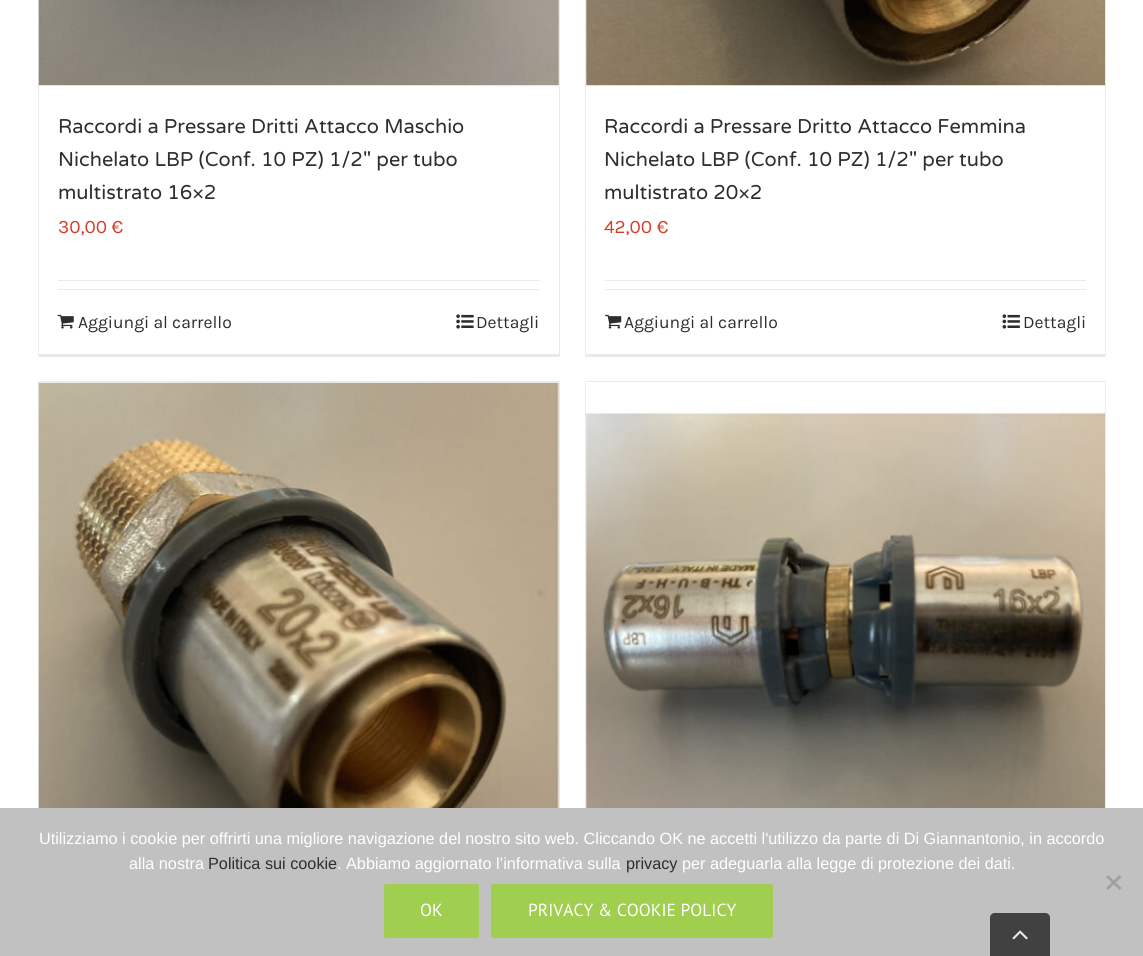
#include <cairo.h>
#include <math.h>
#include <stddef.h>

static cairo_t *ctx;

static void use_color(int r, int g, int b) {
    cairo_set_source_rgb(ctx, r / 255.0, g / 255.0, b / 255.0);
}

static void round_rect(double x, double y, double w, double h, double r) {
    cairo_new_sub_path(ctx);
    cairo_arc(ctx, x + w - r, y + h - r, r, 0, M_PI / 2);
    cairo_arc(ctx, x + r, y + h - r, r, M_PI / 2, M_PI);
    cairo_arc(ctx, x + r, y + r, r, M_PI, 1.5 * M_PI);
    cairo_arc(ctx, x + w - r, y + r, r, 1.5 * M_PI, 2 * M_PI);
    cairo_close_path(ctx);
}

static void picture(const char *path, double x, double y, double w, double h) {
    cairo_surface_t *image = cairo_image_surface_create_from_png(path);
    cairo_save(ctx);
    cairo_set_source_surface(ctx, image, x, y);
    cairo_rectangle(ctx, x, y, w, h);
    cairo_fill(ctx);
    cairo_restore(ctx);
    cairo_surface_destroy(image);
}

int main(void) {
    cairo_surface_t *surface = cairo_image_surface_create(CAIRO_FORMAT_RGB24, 1143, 956);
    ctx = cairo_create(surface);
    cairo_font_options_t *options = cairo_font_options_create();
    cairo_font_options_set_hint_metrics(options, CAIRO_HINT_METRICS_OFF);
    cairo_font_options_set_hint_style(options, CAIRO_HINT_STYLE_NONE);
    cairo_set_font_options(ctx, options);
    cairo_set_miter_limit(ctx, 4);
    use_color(255, 255, 255);
    cairo_paint(ctx);
    use_color(234, 234, 234);
    cairo_rectangle(ctx, 559, 0, 1, 356);
    cairo_fill(ctx);
    cairo_rectangle(ctx, 38, 354, 522, 3);
    cairo_fill(ctx);
    cairo_rectangle(ctx, 38, 0, 1, 356);
    cairo_fill(ctx);
    picture("img1.png", 38, 0, 521, 86);
    cairo_select_font_face(ctx, "Varela Round", CAIRO_FONT_SLANT_NORMAL, CAIRO_FONT_WEIGHT_NORMAL);
    cairo_set_font_size(ctx, 20);
    use_color(43, 46, 50);
    cairo_move_to(ctx, 58, 133);
    cairo_show_text(ctx, "Raccordi a Pressare Dritti Attacco Maschio");
    cairo_move_to(ctx, 58, 166);
    cairo_show_text(ctx, "Nichelato LBP (Conf. 10 PZ) 1/2″ per tubo");
    cairo_move_to(ctx, 58, 199);
    cairo_show_text(ctx, "multistrato 16×2");
    cairo_select_font_face(ctx, "Karla", CAIRO_FONT_SLANT_NORMAL, CAIRO_FONT_WEIGHT_NORMAL);
    cairo_set_font_size(ctx, 19);
    use_color(214, 61, 39);
    cairo_move_to(ctx, 58, 233);
    cairo_show_text(ctx, "30,00 €");
    use_color(234, 234, 234);
    cairo_rectangle(ctx, 58, 280, 482, 1);
    cairo_fill(ctx);
    cairo_rectangle(ctx, 58, 289, 482, 1);
    cairo_fill(ctx);
    picture("img2.png", 57, 314, 17, 15);
    cairo_set_font_size(ctx, 17.5);
    use_color(43, 46, 50);
    cairo_move_to(ctx, 78, 328);
    cairo_show_text(ctx, "Aggiungi al carrello");
    picture("img3.png", 456, 314, 18, 15);
    cairo_move_to(ctx, 476, 328);
    cairo_show_text(ctx, "Dettagli");
    use_color(234, 234, 234);
    cairo_rectangle(ctx, 1105, 0, 1, 356);
    cairo_fill(ctx);
    cairo_rectangle(ctx, 585, 354, 521, 3);
    cairo_fill(ctx);
    cairo_rectangle(ctx, 585, 0, 1, 356);
    cairo_fill(ctx);
    picture("img4.png", 586, 0, 519, 86);
    cairo_select_font_face(ctx, "Varela Round", CAIRO_FONT_SLANT_NORMAL, CAIRO_FONT_WEIGHT_NORMAL);
    cairo_set_font_size(ctx, 20);
    use_color(43, 46, 50);
    cairo_move_to(ctx, 604, 133);
    cairo_show_text(ctx, "Raccordi a Pressare Dritto Attacco Femmina");
    cairo_move_to(ctx, 604, 166);
    cairo_show_text(ctx, "Nichelato LBP (Conf. 10 PZ) 1/2″ per tubo");
    cairo_move_to(ctx, 604, 199);
    cairo_show_text(ctx, "multistrato 20×2");
    cairo_select_font_face(ctx, "Karla", CAIRO_FONT_SLANT_NORMAL, CAIRO_FONT_WEIGHT_NORMAL);
    cairo_set_font_size(ctx, 19);
    use_color(214, 61, 39);
    cairo_move_to(ctx, 604, 233);
    cairo_show_text(ctx, "42,00 €");
    use_color(234, 234, 234);
    cairo_rectangle(ctx, 605, 280, 481, 1);
    cairo_fill(ctx);
    cairo_rectangle(ctx, 605, 289, 481, 1);
    cairo_fill(ctx);
    picture("img5.png", 605, 314, 17, 15);
    cairo_set_font_size(ctx, 17.5);
    use_color(43, 46, 50);
    cairo_move_to(ctx, 624, 328);
    cairo_show_text(ctx, "Aggiungi al carrello");
    picture("img6.png", 1002, 314, 18, 15);
    cairo_move_to(ctx, 1023, 328);
    cairo_show_text(ctx, "Dettagli");
    use_color(234, 234, 234);
    cairo_rectangle(ctx, 38, 381, 522, 1);
    cairo_fill(ctx);
    cairo_rectangle(ctx, 559, 381, 1, 427);
    cairo_fill(ctx);
    cairo_rectangle(ctx, 38, 381, 1, 427);
    cairo_fill(ctx);
    picture("img7.png", 38, 382, 521, 426);
    cairo_rectangle(ctx, 585, 381, 521, 1);
    cairo_fill(ctx);
    cairo_rectangle(ctx, 1105, 381, 1, 427);
    cairo_fill(ctx);
    cairo_rectangle(ctx, 585, 381, 1, 427);
    cairo_fill(ctx);
    picture("img8.png", 586, 383, 519, 425);
    use_color(193, 193, 193);
    cairo_rectangle(ctx, 0, 808, 1143, 148);
    cairo_fill(ctx);
    cairo_select_font_face(ctx, "Liberation Sans", CAIRO_FONT_SLANT_NORMAL, CAIRO_FONT_WEIGHT_NORMAL);
    cairo_set_font_size(ctx, 16.25);
    use_color(255, 255, 255);
    cairo_move_to(ctx, 39, 844);
    cairo_show_text(ctx, "Utilizziamo i cookie per offrirti una migliore navigazione del nostro sito web. Cliccando OK ne accetti l'utilizzo da parte di Di Giannantonio, in accordo");
    cairo_move_to(ctx, 129, 869);
    cairo_show_text(ctx, "alla nostra");
    use_color(43, 46, 50);
    cairo_move_to(ctx, 208, 869);
    cairo_show_text(ctx, "Politica sui cookie");
    use_color(255, 255, 255);
    cairo_move_to(ctx, 337, 869);
    cairo_show_text(ctx, ". Abbiamo aggiornato l’informativa sulla");
    use_color(43, 46, 50);
    cairo_move_to(ctx, 626, 869);
    cairo_show_text(ctx, "privacy");
    use_color(255, 255, 255);
    cairo_move_to(ctx, 682, 869);
    cairo_show_text(ctx, "per adeguarla alla legge di protezione dei dati.");
    use_color(161, 161, 161);
    cairo_new_path(ctx);
    cairo_move_to(ctx, 1119.5, 875);
    cairo_line_to(ctx, 1121.5, 877);
    cairo_line_to(ctx, 1108, 890);
    cairo_line_to(ctx, 1106, 888);
    cairo_close_path(ctx);
    cairo_fill(ctx);
    cairo_new_path(ctx);
    cairo_move_to(ctx, 1106, 877);
    cairo_line_to(ctx, 1108, 875);
    cairo_line_to(ctx, 1121.5, 888);
    cairo_line_to(ctx, 1119.5, 890);
    cairo_close_path(ctx);
    cairo_fill(ctx);
    use_color(160, 206, 78);
    round_rect(384, 884, 95, 54, 2.5);
    cairo_fill(ctx);
    cairo_select_font_face(ctx, "PT Sans", CAIRO_FONT_SLANT_NORMAL, CAIRO_FONT_WEIGHT_NORMAL);
    cairo_set_font_size(ctx, 17.5);
    use_color(255, 255, 255);
    cairo_move_to(ctx, 420, 916);
    cairo_show_text(ctx, "OK");
    use_color(160, 206, 78);
    round_rect(491, 884, 282, 54, 2.5);
    cairo_fill(ctx);
    use_color(255, 255, 255);
    cairo_move_to(ctx, 528, 916);
    cairo_show_text(ctx, "PRIVACY & COOKIE POLICY");
    use_color(65, 65, 65);
    cairo_new_path(ctx);
    cairo_move_to(ctx, 995, 913);
    cairo_line_to(ctx, 1045, 913);
    cairo_curve_to(ctx, 1048, 913, 1050, 915, 1050, 918);
    cairo_line_to(ctx, 1050, 956);
    cairo_line_to(ctx, 990, 956);
    cairo_line_to(ctx, 990, 918);
    cairo_curve_to(ctx, 990, 915, 992, 913, 995, 913);
    cairo_close_path(ctx);
    cairo_fill(ctx);
    picture("img9.png", 1012, 930, 16, 10);
    cairo_surface_write_to_png(surface, "result.png");
    cairo_font_options_destroy(options);
    cairo_destroy(ctx);
    cairo_surface_destroy(surface);
    return 0;
}
